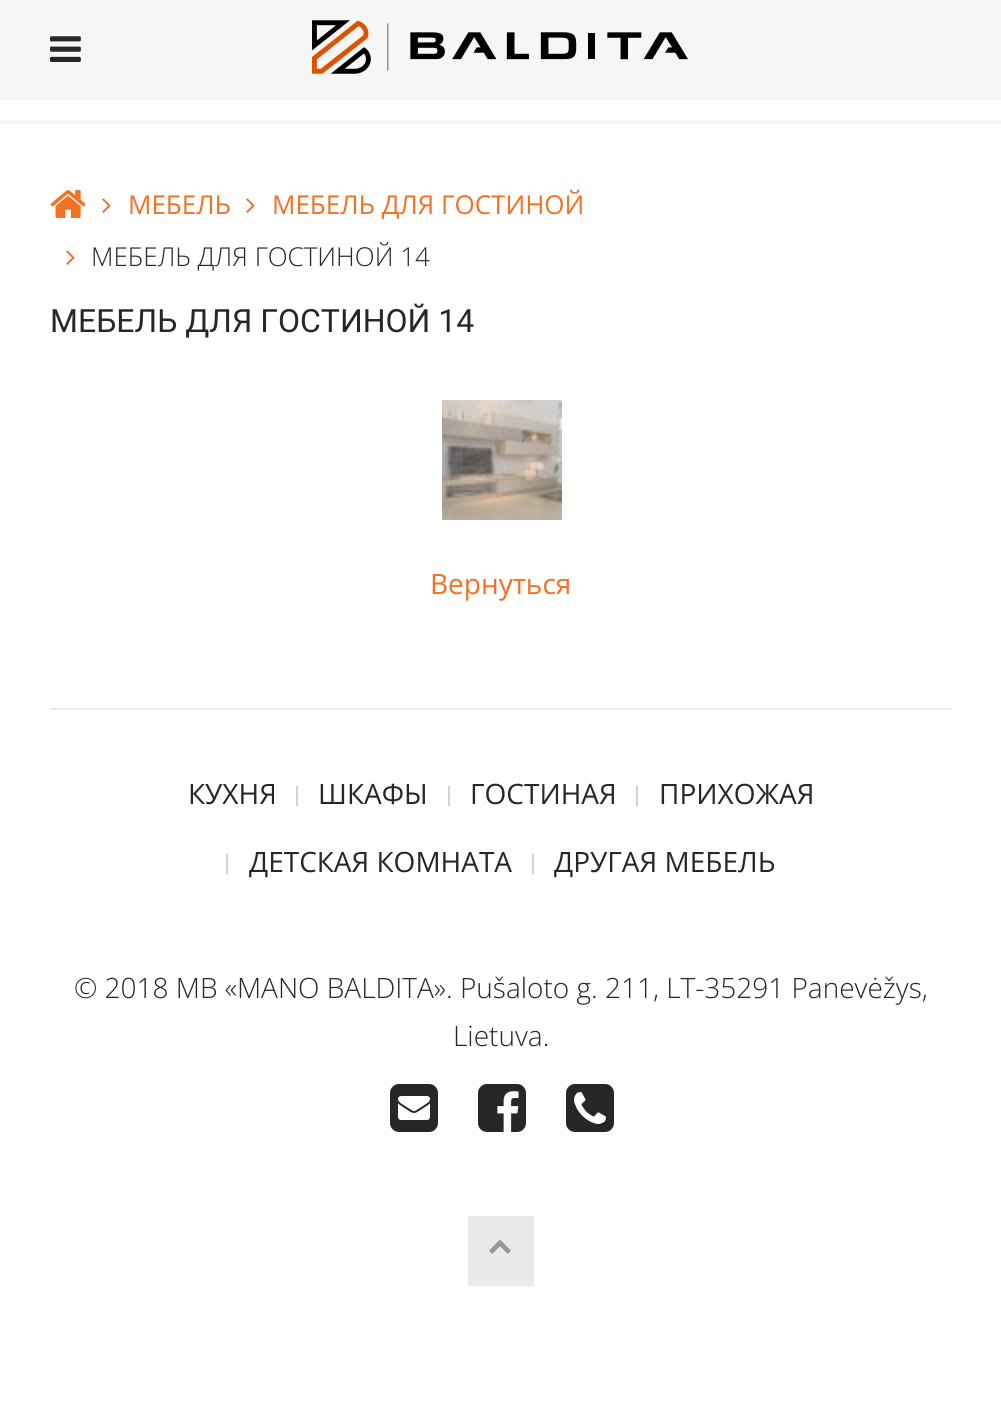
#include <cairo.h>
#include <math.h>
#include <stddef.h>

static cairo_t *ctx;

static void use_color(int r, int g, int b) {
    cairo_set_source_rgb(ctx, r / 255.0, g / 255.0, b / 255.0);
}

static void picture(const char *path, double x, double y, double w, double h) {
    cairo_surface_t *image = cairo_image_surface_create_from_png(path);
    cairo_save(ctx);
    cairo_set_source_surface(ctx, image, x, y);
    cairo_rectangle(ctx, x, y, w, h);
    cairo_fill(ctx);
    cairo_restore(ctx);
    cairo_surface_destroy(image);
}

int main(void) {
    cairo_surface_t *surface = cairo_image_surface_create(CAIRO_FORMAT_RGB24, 1001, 1414);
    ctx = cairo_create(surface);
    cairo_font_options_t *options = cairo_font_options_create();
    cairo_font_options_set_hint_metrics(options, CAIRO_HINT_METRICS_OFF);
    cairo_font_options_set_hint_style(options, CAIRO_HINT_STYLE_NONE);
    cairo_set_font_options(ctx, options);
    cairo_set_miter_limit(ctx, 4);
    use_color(255, 255, 255);
    cairo_paint(ctx);
    use_color(247, 247, 247);
    cairo_rectangle(ctx, 0, 120, 1001, 4);
    cairo_fill(ctx);
    use_color(246, 246, 246);
    cairo_rectangle(ctx, 0, 0, 1001, 100);
    cairo_fill(ctx);
    picture("img1.png", 50, 36, 31, 26);
    picture("img2.png", 312, 20, 376, 54);
    picture("img3.png", 50, 190, 36, 28);
    picture("img4.png", 102, 198, 9, 15);
    cairo_select_font_face(ctx, "Open Sans", CAIRO_FONT_SLANT_NORMAL, CAIRO_FONT_WEIGHT_NORMAL);
    cairo_set_font_size(ctx, 26);
    use_color(244, 113, 33);
    cairo_move_to(ctx, 128, 214);
    cairo_show_text(ctx, "МЕБЕЛЬ");
    picture("img4.png", 246, 198, 9, 15);
    cairo_move_to(ctx, 272, 214);
    cairo_show_text(ctx, "МЕБЕЛЬ ДЛЯ ГОСТИНОЙ");
    picture("img4.png", 66, 250, 9, 15);
    cairo_select_font_face(ctx, "Open Sans Light", CAIRO_FONT_SLANT_NORMAL, CAIRO_FONT_WEIGHT_NORMAL);
    use_color(40, 38, 39);
    cairo_move_to(ctx, 91, 266);
    cairo_show_text(ctx, "МЕБЕЛЬ ДЛЯ ГОСТИНОЙ 14");
    cairo_select_font_face(ctx, "Roboto", CAIRO_FONT_SLANT_NORMAL, CAIRO_FONT_WEIGHT_NORMAL);
    cairo_set_font_size(ctx, 32);
    cairo_move_to(ctx, 50, 332);
    cairo_show_text(ctx, "МЕБЕЛЬ ДЛЯ ГОСТИНОЙ 14");
    picture("img5.png", 442, 400, 120, 120);
    cairo_select_font_face(ctx, "Open Sans", CAIRO_FONT_SLANT_NORMAL, CAIRO_FONT_WEIGHT_NORMAL);
    cairo_set_font_size(ctx, 28);
    use_color(244, 113, 33);
    cairo_move_to(ctx, 430, 594);
    cairo_show_text(ctx, "Вернуться");
    use_color(234, 234, 234);
    cairo_rectangle(ctx, 50, 708, 902, 2);
    cairo_fill(ctx);
    use_color(40, 38, 39);
    cairo_move_to(ctx, 188, 804);
    cairo_show_text(ctx, "КУХНЯ");
    use_color(209, 209, 209);
    cairo_rectangle(ctx, 296, 786, 2, 20);
    cairo_fill(ctx);
    use_color(40, 38, 39);
    cairo_move_to(ctx, 318, 804);
    cairo_show_text(ctx, "ШКАФЫ");
    use_color(209, 209, 209);
    cairo_rectangle(ctx, 448, 786, 2, 20);
    cairo_fill(ctx);
    use_color(40, 38, 39);
    cairo_move_to(ctx, 470, 804);
    cairo_show_text(ctx, "ГОСТИНАЯ");
    use_color(209, 209, 209);
    cairo_rectangle(ctx, 636, 786, 2, 20);
    cairo_fill(ctx);
    use_color(40, 38, 39);
    cairo_move_to(ctx, 659, 804);
    cairo_show_text(ctx, "ПРИХОЖАЯ");
    use_color(209, 209, 209);
    cairo_rectangle(ctx, 226, 854, 2, 20);
    cairo_fill(ctx);
    use_color(40, 38, 39);
    cairo_move_to(ctx, 249, 872);
    cairo_show_text(ctx, "ДЕТСКАЯ КОМНАТА");
    use_color(209, 209, 209);
    cairo_rectangle(ctx, 532, 854, 2, 20);
    cairo_fill(ctx);
    use_color(40, 38, 39);
    cairo_move_to(ctx, 554, 872);
    cairo_show_text(ctx, "ДРУГАЯ МЕБЕЛЬ");
    cairo_select_font_face(ctx, "Open Sans Light", CAIRO_FONT_SLANT_NORMAL, CAIRO_FONT_WEIGHT_NORMAL);
    cairo_move_to(ctx, 74, 998);
    cairo_show_text(ctx, "© 2018 MB «MANO BALDITA». Pušaloto g. 211, LT-35291 Panevėžys,");
    cairo_move_to(ctx, 453, 1046);
    cairo_show_text(ctx, "Lietuva.");
    picture("img6.png", 390, 1084, 48, 48);
    picture("img7.png", 478, 1084, 48, 48);
    picture("img8.png", 566, 1084, 48, 48);
    use_color(234, 234, 234);
    cairo_rectangle(ctx, 468, 1216, 66, 70);
    cairo_fill(ctx);
    picture("img9.png", 489, 1240, 22, 14);
    cairo_surface_write_to_png(surface, "result.png");
    cairo_font_options_destroy(options);
    cairo_destroy(ctx);
    cairo_surface_destroy(surface);
    return 0;
}
